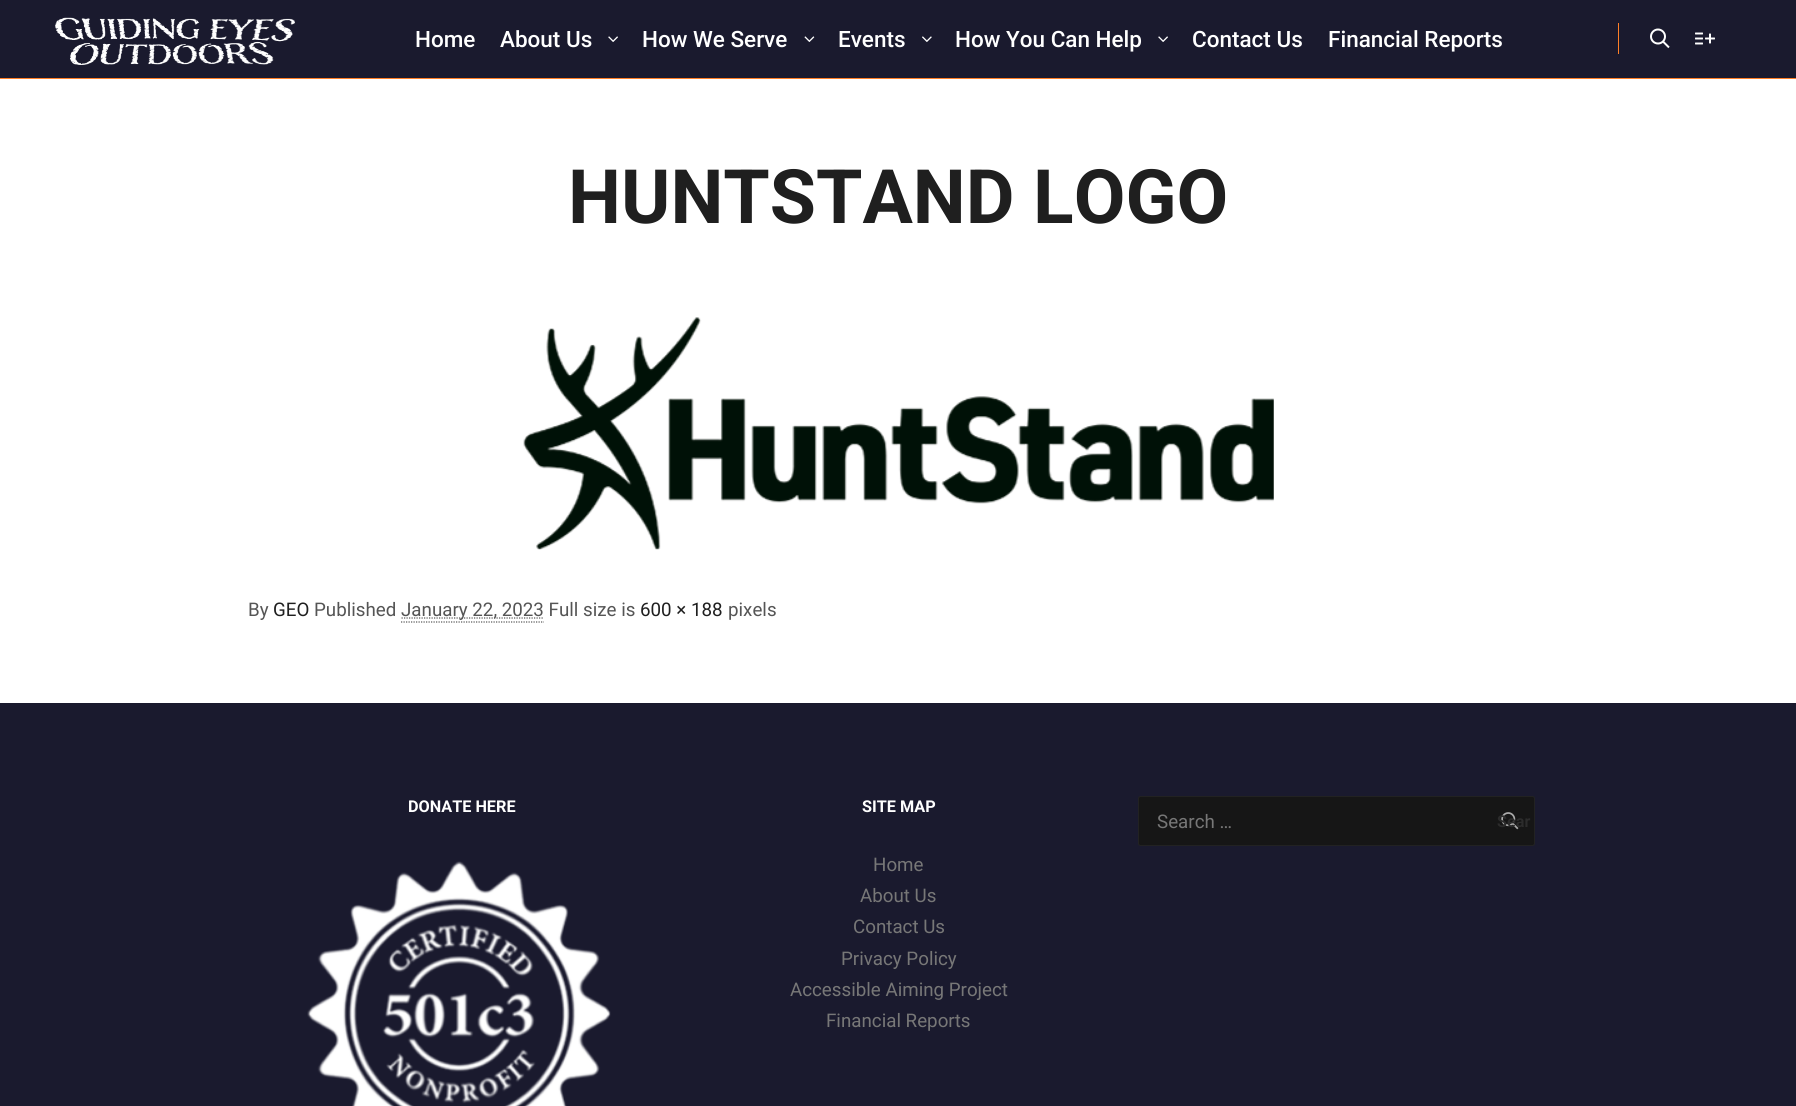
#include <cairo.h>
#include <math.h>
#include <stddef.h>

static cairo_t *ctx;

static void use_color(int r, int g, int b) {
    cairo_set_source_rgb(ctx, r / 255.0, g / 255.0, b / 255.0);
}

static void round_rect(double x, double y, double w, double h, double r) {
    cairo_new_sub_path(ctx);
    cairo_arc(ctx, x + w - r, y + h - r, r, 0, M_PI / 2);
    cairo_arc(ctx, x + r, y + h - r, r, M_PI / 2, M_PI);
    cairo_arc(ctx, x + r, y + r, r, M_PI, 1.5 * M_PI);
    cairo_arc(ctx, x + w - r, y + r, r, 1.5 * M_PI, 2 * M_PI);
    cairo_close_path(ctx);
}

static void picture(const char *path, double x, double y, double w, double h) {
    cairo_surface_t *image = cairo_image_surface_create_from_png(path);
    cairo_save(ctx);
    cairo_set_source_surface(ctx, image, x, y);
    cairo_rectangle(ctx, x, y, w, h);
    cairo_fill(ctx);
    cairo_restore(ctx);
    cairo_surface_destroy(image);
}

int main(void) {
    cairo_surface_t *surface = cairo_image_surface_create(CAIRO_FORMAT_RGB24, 1796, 1106);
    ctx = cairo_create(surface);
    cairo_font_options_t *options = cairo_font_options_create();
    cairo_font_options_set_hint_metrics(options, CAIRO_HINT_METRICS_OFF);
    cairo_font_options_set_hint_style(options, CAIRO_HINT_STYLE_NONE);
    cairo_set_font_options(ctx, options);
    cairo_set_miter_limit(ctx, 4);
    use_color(255, 255, 255);
    cairo_paint(ctx);
    use_color(26, 26, 46);
    cairo_rectangle(ctx, 0, 0, 1796, 78);
    cairo_fill(ctx);
    use_color(255, 127, 39);
    cairo_rectangle(ctx, 0, 78, 1796, 1);
    cairo_fill(ctx);
    picture("img1.png", 55, 17, 240, 48);
    cairo_select_font_face(ctx, "Roboto Medium", CAIRO_FONT_SLANT_NORMAL, CAIRO_FONT_WEIGHT_NORMAL);
    cairo_set_font_size(ctx, 22.5);
    use_color(255, 255, 255);
    cairo_move_to(ctx, 415, 47);
    cairo_show_text(ctx, "Home");
    cairo_move_to(ctx, 500, 47);
    cairo_show_text(ctx, "About Us");
    picture("img2.png", 608, 36, 10, 6);
    cairo_move_to(ctx, 642, 47);
    cairo_show_text(ctx, "How We Serve");
    picture("img3.png", 804, 36, 11, 6);
    cairo_move_to(ctx, 838, 47);
    cairo_show_text(ctx, "Events");
    picture("img4.png", 922, 36, 10, 6);
    cairo_move_to(ctx, 955, 47);
    cairo_show_text(ctx, "How You Can Help");
    picture("img2.png", 1158, 36, 10, 6);
    cairo_move_to(ctx, 1192, 47);
    cairo_show_text(ctx, "Contact Us");
    cairo_move_to(ctx, 1328, 47);
    cairo_show_text(ctx, "Financial Reports");
    use_color(255, 127, 39);
    cairo_rectangle(ctx, 1618, 23, 1, 31);
    cairo_fill(ctx);
    picture("img5.png", 1650, 28, 20, 21);
    picture("img6.png", 1695, 32, 20, 13);
    cairo_select_font_face(ctx, "Roboto", CAIRO_FONT_SLANT_NORMAL, CAIRO_FONT_WEIGHT_BOLD);
    cairo_set_font_size(ctx, 75);
    use_color(31, 31, 31);
    cairo_move_to(ctx, 568, 223);
    cairo_show_text(ctx, "HUNTSTAND LOGO");
    picture("img7.png", 523, 317, 751, 233);
    cairo_select_font_face(ctx, "Roboto", CAIRO_FONT_SLANT_NORMAL, CAIRO_FONT_WEIGHT_NORMAL);
    cairo_set_font_size(ctx, 18.75);
    use_color(85, 85, 85);
    cairo_move_to(ctx, 248, 616);
    cairo_show_text(ctx, "By");
    use_color(31, 31, 31);
    cairo_move_to(ctx, 273, 616);
    cairo_show_text(ctx, "GEO");
    use_color(85, 85, 85);
    cairo_move_to(ctx, 314, 616);
    cairo_show_text(ctx, "Published");
    cairo_new_path(ctx);
    cairo_move_to(ctx, 401.5, 618);
    cairo_line_to(ctx, 544, 618);
    cairo_set_line_width(ctx, 1.2);
    cairo_set_dash(ctx, (double[]){1.25, 1.25}, 2, 0);
    cairo_stroke(ctx);
    cairo_move_to(ctx, 401, 616);
    cairo_show_text(ctx, "January 22, 2023 Full size is");
    cairo_new_path(ctx);
    cairo_move_to(ctx, 401, 622);
    cairo_line_to(ctx, 544, 622);
    cairo_stroke(ctx);
    use_color(31, 31, 31);
    cairo_move_to(ctx, 640, 616);
    cairo_show_text(ctx, "600 × 188");
    use_color(85, 85, 85);
    cairo_move_to(ctx, 728, 616);
    cairo_show_text(ctx, "pixels");
    use_color(26, 26, 46);
    cairo_rectangle(ctx, 0, 703, 1796, 403);
    cairo_fill(ctx);
    cairo_select_font_face(ctx, "Roboto", CAIRO_FONT_SLANT_NORMAL, CAIRO_FONT_WEIGHT_BOLD);
    cairo_set_font_size(ctx, 16.25);
    use_color(255, 255, 255);
    cairo_move_to(ctx, 408, 812);
    cairo_show_text(ctx, "DONATE HERE");
    picture("img8.png", 307, 861, 304, 245);
    cairo_move_to(ctx, 862, 812);
    cairo_show_text(ctx, "SITE MAP");
    cairo_select_font_face(ctx, "Roboto", CAIRO_FONT_SLANT_NORMAL, CAIRO_FONT_WEIGHT_NORMAL);
    cairo_set_font_size(ctx, 18.75);
    use_color(119, 119, 119);
    cairo_move_to(ctx, 873, 871);
    cairo_show_text(ctx, "Home");
    cairo_move_to(ctx, 860, 902);
    cairo_show_text(ctx, "About Us");
    cairo_move_to(ctx, 853, 933);
    cairo_show_text(ctx, "Contact Us");
    cairo_move_to(ctx, 841, 965);
    cairo_show_text(ctx, "Privacy Policy");
    cairo_move_to(ctx, 790, 996);
    cairo_show_text(ctx, "Accessible Aiming Project");
    cairo_move_to(ctx, 826, 1027);
    cairo_show_text(ctx, "Financial Reports");
    use_color(22, 22, 22);
    round_rect(1138.5, 796.5, 396, 49, 2);
    cairo_fill_preserve(ctx);
    use_color(34, 34, 34);
    cairo_set_line_width(ctx, 1);
    cairo_set_dash(ctx, NULL, 0, 0);
    cairo_stroke(ctx);
    picture("img9.png", 1501, 812, 18, 18);
    use_color(119, 119, 119);
    cairo_move_to(ctx, 1157, 828);
    cairo_show_text(ctx, "Search …");
    cairo_select_font_face(ctx, "Roboto SemiBold", CAIRO_FONT_SLANT_NORMAL, CAIRO_FONT_WEIGHT_NORMAL);
    cairo_set_font_size(ctx, 16.25);
    use_color(44, 44, 44);
    cairo_move_to(ctx, 1497, 827);
    cairo_show_text(ctx, "Sear");
    cairo_surface_write_to_png(surface, "result.png");
    cairo_font_options_destroy(options);
    cairo_destroy(ctx);
    cairo_surface_destroy(surface);
    return 0;
}
